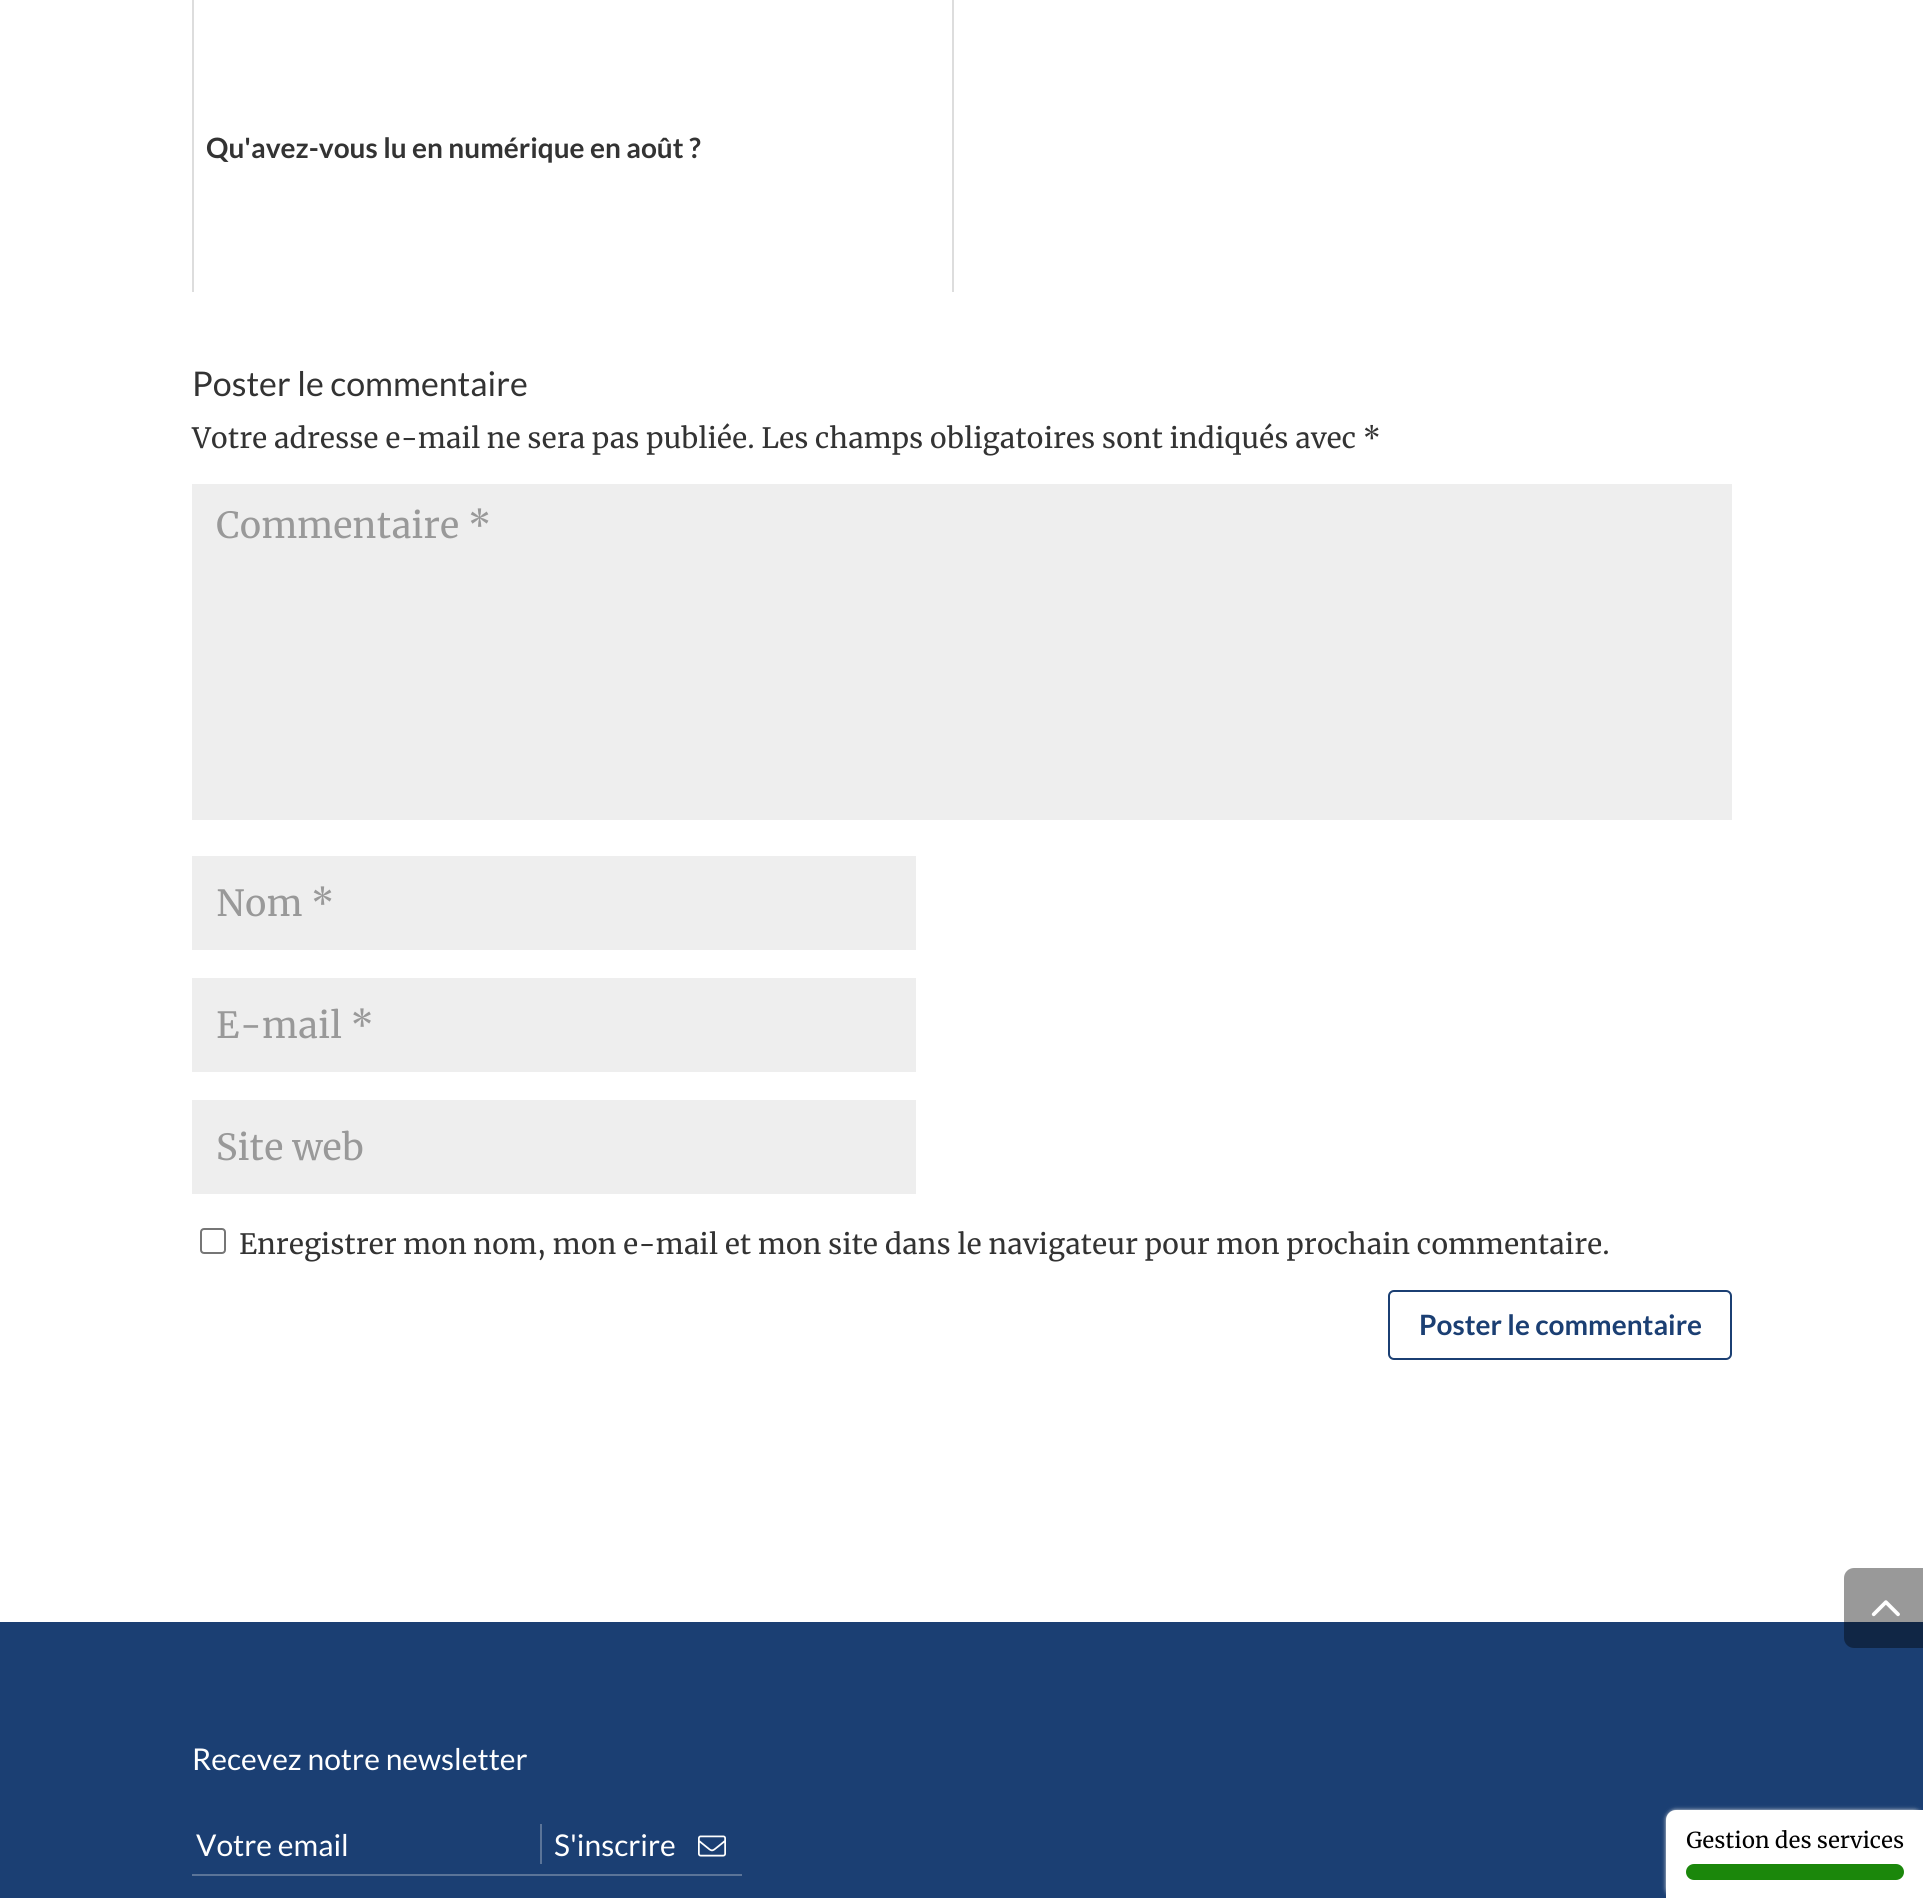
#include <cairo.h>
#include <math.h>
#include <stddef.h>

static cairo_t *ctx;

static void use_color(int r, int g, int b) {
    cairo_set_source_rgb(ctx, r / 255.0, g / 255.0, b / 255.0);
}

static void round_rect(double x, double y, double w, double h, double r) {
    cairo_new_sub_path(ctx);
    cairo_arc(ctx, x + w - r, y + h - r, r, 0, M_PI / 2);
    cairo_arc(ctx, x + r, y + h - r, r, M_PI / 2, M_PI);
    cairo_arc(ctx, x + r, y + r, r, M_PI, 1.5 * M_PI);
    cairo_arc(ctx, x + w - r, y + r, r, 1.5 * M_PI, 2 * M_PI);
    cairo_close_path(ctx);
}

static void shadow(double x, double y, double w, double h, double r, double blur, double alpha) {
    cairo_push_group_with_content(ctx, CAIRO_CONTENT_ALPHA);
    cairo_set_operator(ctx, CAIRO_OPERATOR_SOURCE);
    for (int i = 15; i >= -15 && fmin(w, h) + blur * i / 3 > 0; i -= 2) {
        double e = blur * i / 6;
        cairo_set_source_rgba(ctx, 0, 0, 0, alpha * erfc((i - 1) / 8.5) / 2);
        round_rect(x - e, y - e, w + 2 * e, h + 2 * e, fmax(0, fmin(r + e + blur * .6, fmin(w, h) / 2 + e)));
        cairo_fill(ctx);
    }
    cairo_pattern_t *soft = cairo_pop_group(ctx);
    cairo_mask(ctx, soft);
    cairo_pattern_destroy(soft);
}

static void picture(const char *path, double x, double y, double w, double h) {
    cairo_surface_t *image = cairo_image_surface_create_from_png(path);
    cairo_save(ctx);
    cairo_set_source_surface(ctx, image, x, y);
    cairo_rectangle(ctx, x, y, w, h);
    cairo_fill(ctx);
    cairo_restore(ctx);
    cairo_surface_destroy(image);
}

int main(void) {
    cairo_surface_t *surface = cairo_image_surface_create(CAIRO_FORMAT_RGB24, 1923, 1898);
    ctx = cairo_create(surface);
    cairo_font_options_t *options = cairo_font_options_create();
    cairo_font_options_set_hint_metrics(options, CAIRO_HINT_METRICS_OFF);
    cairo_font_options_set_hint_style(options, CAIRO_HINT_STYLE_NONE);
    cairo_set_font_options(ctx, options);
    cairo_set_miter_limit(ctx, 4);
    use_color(255, 255, 255);
    cairo_paint(ctx);
    use_color(221, 221, 221);
    cairo_rectangle(ctx, 952, 0, 2, 292);
    cairo_fill(ctx);
    cairo_rectangle(ctx, 192, 0, 2, 292);
    cairo_fill(ctx);
    cairo_select_font_face(ctx, "Lato", CAIRO_FONT_SLANT_NORMAL, CAIRO_FONT_WEIGHT_BOLD);
    cairo_set_font_size(ctx, 28);
    use_color(51, 51, 51);
    cairo_move_to(ctx, 206, 158);
    cairo_show_text(ctx, "Qu'avez-vous lu en numérique en août ?");
    cairo_select_font_face(ctx, "Lato", CAIRO_FONT_SLANT_NORMAL, CAIRO_FONT_WEIGHT_NORMAL);
    cairo_set_font_size(ctx, 34);
    cairo_move_to(ctx, 192, 396);
    cairo_show_text(ctx, "Poster le commentaire");
    cairo_select_font_face(ctx, "Merriweather", CAIRO_FONT_SLANT_NORMAL, CAIRO_FONT_WEIGHT_NORMAL);
    cairo_set_font_size(ctx, 28);
    cairo_move_to(ctx, 192, 448);
    cairo_show_text(ctx, "Votre adresse e-mail ne sera pas publiée. Les champs obligatoires sont indiqués avec *");
    use_color(238, 238, 238);
    cairo_rectangle(ctx, 192, 484, 1540, 336);
    cairo_fill(ctx);
    cairo_set_font_size(ctx, 36);
    use_color(153, 153, 153);
    cairo_move_to(ctx, 216, 538);
    cairo_show_text(ctx, "Commentaire *");
    use_color(238, 238, 238);
    cairo_rectangle(ctx, 192, 856, 724, 94);
    cairo_fill(ctx);
    use_color(153, 153, 153);
    cairo_move_to(ctx, 216, 916);
    cairo_show_text(ctx, "Nom *");
    use_color(238, 238, 238);
    cairo_rectangle(ctx, 192, 978, 724, 94);
    cairo_fill(ctx);
    use_color(153, 153, 153);
    cairo_move_to(ctx, 216, 1038);
    cairo_show_text(ctx, "E-mail *");
    use_color(238, 238, 238);
    cairo_rectangle(ctx, 192, 1100, 724, 94);
    cairo_fill(ctx);
    use_color(153, 153, 153);
    cairo_move_to(ctx, 216, 1160);
    cairo_show_text(ctx, "Site web");
    round_rect(201, 1229, 24, 24, 3);
    use_color(118, 118, 118);
    cairo_stroke(ctx);
    cairo_set_font_size(ctx, 28);
    use_color(51, 51, 51);
    cairo_move_to(ctx, 239, 1254);
    cairo_show_text(ctx, "Enregistrer mon nom, mon e-mail et mon site dans le navigateur pour mon prochain commentaire.");
    round_rect(1389, 1291, 342, 68, 5);
    use_color(27, 63, 115);
    cairo_stroke(ctx);
    cairo_select_font_face(ctx, "Lato", CAIRO_FONT_SLANT_NORMAL, CAIRO_FONT_WEIGHT_BOLD);
    cairo_move_to(ctx, 1419, 1335);
    cairo_show_text(ctx, "Poster le commentaire");
    cairo_rectangle(ctx, 0, 1622, 1923, 276);
    cairo_fill(ctx);
    cairo_set_source_rgba(ctx, 0, 0, 0, 0.4);
    cairo_new_path(ctx);
    cairo_move_to(ctx, 1854, 1568);
    cairo_line_to(ctx, 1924, 1568);
    cairo_line_to(ctx, 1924, 1648);
    cairo_line_to(ctx, 1854, 1648);
    cairo_curve_to(ctx, 1848.5, 1648, 1844, 1643.5, 1844, 1638);
    cairo_line_to(ctx, 1844, 1578);
    cairo_curve_to(ctx, 1844, 1572.5, 1848.5, 1568, 1854, 1568);
    cairo_close_path(ctx);
    cairo_fill(ctx);
    picture("img1.png", 1871, 1600, 29, 17);
    cairo_select_font_face(ctx, "Lato", CAIRO_FONT_SLANT_NORMAL, CAIRO_FONT_WEIGHT_NORMAL);
    cairo_set_font_size(ctx, 30);
    use_color(255, 255, 255);
    cairo_move_to(ctx, 192, 1770);
    cairo_show_text(ctx, "Recevez notre newsletter");
    cairo_move_to(ctx, 196, 1856);
    cairo_show_text(ctx, "Votre email");
    use_color(91, 116, 152);
    cairo_rectangle(ctx, 540, 1824, 2, 40);
    cairo_fill(ctx);
    use_color(255, 255, 255);
    cairo_move_to(ctx, 554, 1856);
    cairo_show_text(ctx, "S'inscrire");
    picture("img2.png", 698, 1835, 28, 22);
    use_color(91, 116, 152);
    cairo_rectangle(ctx, 192, 1874, 550, 2);
    cairo_fill(ctx);
    use_color(221, 221, 221);
    shadow(1666, 1810, 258, 88, 10, 2, 1);
    use_color(255, 255, 255);
    cairo_new_path(ctx);
    cairo_move_to(ctx, 1676, 1810);
    cairo_line_to(ctx, 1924, 1810);
    cairo_line_to(ctx, 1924, 1898);
    cairo_line_to(ctx, 1666, 1898);
    cairo_line_to(ctx, 1666, 1820);
    cairo_curve_to(ctx, 1666, 1814.5, 1670.5, 1810, 1676, 1810);
    cairo_close_path(ctx);
    cairo_fill(ctx);
    cairo_select_font_face(ctx, "Merriweather", CAIRO_FONT_SLANT_NORMAL, CAIRO_FONT_WEIGHT_NORMAL);
    cairo_set_font_size(ctx, 22);
    use_color(0, 0, 0);
    cairo_move_to(ctx, 1686, 1848);
    cairo_show_text(ctx, "Gestion des services");
    use_color(27, 135, 11);
    round_rect(1686, 1864, 218, 16, 8);
    cairo_fill(ctx);
    cairo_surface_write_to_png(surface, "result.png");
    cairo_font_options_destroy(options);
    cairo_destroy(ctx);
    cairo_surface_destroy(surface);
    return 0;
}
